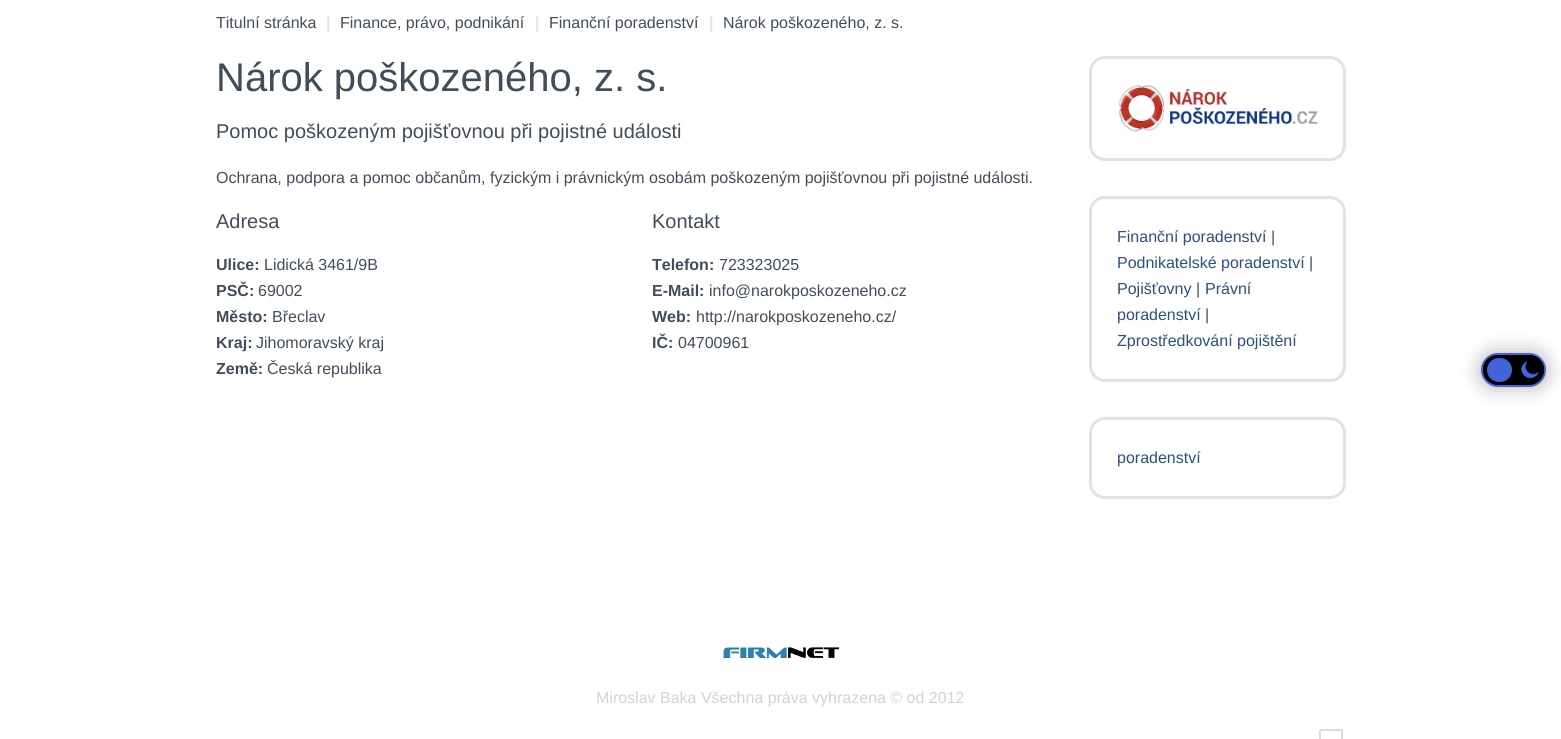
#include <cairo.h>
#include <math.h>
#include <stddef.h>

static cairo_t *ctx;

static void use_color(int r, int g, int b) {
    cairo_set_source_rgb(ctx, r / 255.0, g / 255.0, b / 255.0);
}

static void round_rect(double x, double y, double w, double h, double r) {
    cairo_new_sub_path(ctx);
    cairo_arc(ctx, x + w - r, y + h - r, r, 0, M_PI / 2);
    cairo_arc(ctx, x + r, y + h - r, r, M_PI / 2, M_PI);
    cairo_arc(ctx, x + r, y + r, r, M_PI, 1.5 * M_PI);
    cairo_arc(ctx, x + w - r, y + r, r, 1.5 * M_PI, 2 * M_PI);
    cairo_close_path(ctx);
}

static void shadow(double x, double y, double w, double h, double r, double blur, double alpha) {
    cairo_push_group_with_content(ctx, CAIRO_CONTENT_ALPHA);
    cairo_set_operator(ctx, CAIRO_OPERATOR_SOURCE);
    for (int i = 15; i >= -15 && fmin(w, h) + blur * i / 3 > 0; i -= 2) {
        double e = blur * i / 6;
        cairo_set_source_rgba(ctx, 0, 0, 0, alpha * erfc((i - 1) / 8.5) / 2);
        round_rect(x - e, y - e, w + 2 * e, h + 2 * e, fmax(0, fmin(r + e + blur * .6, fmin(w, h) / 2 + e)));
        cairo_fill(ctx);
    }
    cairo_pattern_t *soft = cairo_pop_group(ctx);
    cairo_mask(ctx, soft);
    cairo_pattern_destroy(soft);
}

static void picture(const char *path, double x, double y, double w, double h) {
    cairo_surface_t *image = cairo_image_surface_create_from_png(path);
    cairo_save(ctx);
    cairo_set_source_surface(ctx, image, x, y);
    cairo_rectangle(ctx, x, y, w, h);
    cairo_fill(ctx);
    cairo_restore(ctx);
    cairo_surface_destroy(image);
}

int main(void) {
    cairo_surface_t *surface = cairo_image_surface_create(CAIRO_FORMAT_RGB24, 1561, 739);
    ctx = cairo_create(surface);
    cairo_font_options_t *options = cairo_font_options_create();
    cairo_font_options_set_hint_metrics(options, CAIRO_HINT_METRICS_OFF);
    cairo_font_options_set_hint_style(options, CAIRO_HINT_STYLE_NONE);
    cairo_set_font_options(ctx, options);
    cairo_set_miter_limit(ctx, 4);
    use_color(255, 255, 255);
    cairo_paint(ctx);
    cairo_select_font_face(ctx, "Liberation Sans", CAIRO_FONT_SLANT_NORMAL, CAIRO_FONT_WEIGHT_NORMAL);
    cairo_set_font_size(ctx, 16);
    use_color(65, 77, 90);
    cairo_move_to(ctx, 216, 28);
    cairo_show_text(ctx, "Titulní stránka");
    cairo_select_font_face(ctx, "Liberation Sans", CAIRO_FONT_SLANT_NORMAL, CAIRO_FONT_WEIGHT_BOLD);
    use_color(223, 226, 232);
    cairo_move_to(ctx, 326, 28);
    cairo_show_text(ctx, "|");
    cairo_select_font_face(ctx, "Liberation Sans", CAIRO_FONT_SLANT_NORMAL, CAIRO_FONT_WEIGHT_NORMAL);
    use_color(65, 77, 90);
    cairo_move_to(ctx, 340, 28);
    cairo_show_text(ctx, "Finance, právo, podnikání");
    cairo_select_font_face(ctx, "Liberation Sans", CAIRO_FONT_SLANT_NORMAL, CAIRO_FONT_WEIGHT_BOLD);
    use_color(223, 226, 232);
    cairo_move_to(ctx, 535, 28);
    cairo_show_text(ctx, "|");
    cairo_select_font_face(ctx, "Liberation Sans", CAIRO_FONT_SLANT_NORMAL, CAIRO_FONT_WEIGHT_NORMAL);
    use_color(65, 77, 90);
    cairo_move_to(ctx, 549, 28);
    cairo_show_text(ctx, "Finanční poradenství");
    cairo_select_font_face(ctx, "Liberation Sans", CAIRO_FONT_SLANT_NORMAL, CAIRO_FONT_WEIGHT_BOLD);
    use_color(223, 226, 232);
    cairo_move_to(ctx, 709, 28);
    cairo_show_text(ctx, "|");
    cairo_select_font_face(ctx, "Liberation Sans", CAIRO_FONT_SLANT_NORMAL, CAIRO_FONT_WEIGHT_NORMAL);
    use_color(65, 77, 90);
    cairo_move_to(ctx, 723, 28);
    cairo_show_text(ctx, "Nárok poškozeného, z. s.");
    cairo_set_font_size(ctx, 40);
    cairo_move_to(ctx, 216, 91);
    cairo_show_text(ctx, "Nárok poškozeného, z. s.");
    cairo_set_font_size(ctx, 20);
    cairo_move_to(ctx, 216, 138);
    cairo_show_text(ctx, "Pomoc poškozeným pojišťovnou při pojistné události");
    cairo_set_font_size(ctx, 16);
    cairo_move_to(ctx, 216, 183);
    cairo_show_text(ctx, "Ochrana, podpora a pomoc občanům, fyzickým i právnickým osobám poškozeným pojišťovnou při pojistné události.");
    cairo_set_font_size(ctx, 20);
    cairo_move_to(ctx, 216, 228);
    cairo_show_text(ctx, "Adresa");
    cairo_select_font_face(ctx, "Liberation Sans", CAIRO_FONT_SLANT_NORMAL, CAIRO_FONT_WEIGHT_BOLD);
    cairo_set_font_size(ctx, 16);
    cairo_move_to(ctx, 216, 270);
    cairo_show_text(ctx, "Ulice:");
    cairo_select_font_face(ctx, "Liberation Sans", CAIRO_FONT_SLANT_NORMAL, CAIRO_FONT_WEIGHT_NORMAL);
    cairo_move_to(ctx, 264, 270);
    cairo_show_text(ctx, "Lidická 3461/9B");
    cairo_select_font_face(ctx, "Liberation Sans", CAIRO_FONT_SLANT_NORMAL, CAIRO_FONT_WEIGHT_BOLD);
    cairo_move_to(ctx, 216, 296);
    cairo_show_text(ctx, "PSČ:");
    cairo_select_font_face(ctx, "Liberation Sans", CAIRO_FONT_SLANT_NORMAL, CAIRO_FONT_WEIGHT_NORMAL);
    cairo_move_to(ctx, 258, 296);
    cairo_show_text(ctx, "69002");
    cairo_select_font_face(ctx, "Liberation Sans", CAIRO_FONT_SLANT_NORMAL, CAIRO_FONT_WEIGHT_BOLD);
    cairo_move_to(ctx, 216, 322);
    cairo_show_text(ctx, "Město:");
    cairo_select_font_face(ctx, "Liberation Sans", CAIRO_FONT_SLANT_NORMAL, CAIRO_FONT_WEIGHT_NORMAL);
    cairo_move_to(ctx, 272, 322);
    cairo_show_text(ctx, "Břeclav");
    cairo_select_font_face(ctx, "Liberation Sans", CAIRO_FONT_SLANT_NORMAL, CAIRO_FONT_WEIGHT_BOLD);
    cairo_move_to(ctx, 216, 348);
    cairo_show_text(ctx, "Kraj:");
    cairo_select_font_face(ctx, "Liberation Sans", CAIRO_FONT_SLANT_NORMAL, CAIRO_FONT_WEIGHT_NORMAL);
    cairo_move_to(ctx, 256, 348);
    cairo_show_text(ctx, "Jihomoravský kraj");
    cairo_select_font_face(ctx, "Liberation Sans", CAIRO_FONT_SLANT_NORMAL, CAIRO_FONT_WEIGHT_BOLD);
    cairo_move_to(ctx, 216, 374);
    cairo_show_text(ctx, "Země:");
    cairo_select_font_face(ctx, "Liberation Sans", CAIRO_FONT_SLANT_NORMAL, CAIRO_FONT_WEIGHT_NORMAL);
    cairo_move_to(ctx, 267, 374);
    cairo_show_text(ctx, "Česká republika");
    cairo_set_font_size(ctx, 20);
    cairo_move_to(ctx, 652, 228);
    cairo_show_text(ctx, "Kontakt");
    cairo_select_font_face(ctx, "Liberation Sans", CAIRO_FONT_SLANT_NORMAL, CAIRO_FONT_WEIGHT_BOLD);
    cairo_set_font_size(ctx, 16);
    cairo_move_to(ctx, 652, 270);
    cairo_show_text(ctx, "Telefon:");
    cairo_select_font_face(ctx, "Liberation Sans", CAIRO_FONT_SLANT_NORMAL, CAIRO_FONT_WEIGHT_NORMAL);
    cairo_move_to(ctx, 719, 270);
    cairo_show_text(ctx, "723323025");
    cairo_select_font_face(ctx, "Liberation Sans", CAIRO_FONT_SLANT_NORMAL, CAIRO_FONT_WEIGHT_BOLD);
    cairo_move_to(ctx, 652, 296);
    cairo_show_text(ctx, "E-Mail:");
    cairo_select_font_face(ctx, "Liberation Sans", CAIRO_FONT_SLANT_NORMAL, CAIRO_FONT_WEIGHT_NORMAL);
    cairo_move_to(ctx, 709, 296);
    cairo_show_text(ctx, "info@narokposkozeneho.cz");
    cairo_select_font_face(ctx, "Liberation Sans", CAIRO_FONT_SLANT_NORMAL, CAIRO_FONT_WEIGHT_BOLD);
    cairo_move_to(ctx, 652, 322);
    cairo_show_text(ctx, "Web:");
    cairo_select_font_face(ctx, "Liberation Sans", CAIRO_FONT_SLANT_NORMAL, CAIRO_FONT_WEIGHT_NORMAL);
    cairo_move_to(ctx, 696, 322);
    cairo_show_text(ctx, "http://narokposkozeneho.cz/");
    cairo_select_font_face(ctx, "Liberation Sans", CAIRO_FONT_SLANT_NORMAL, CAIRO_FONT_WEIGHT_BOLD);
    cairo_move_to(ctx, 652, 348);
    cairo_show_text(ctx, "IČ:");
    cairo_select_font_face(ctx, "Liberation Sans", CAIRO_FONT_SLANT_NORMAL, CAIRO_FONT_WEIGHT_NORMAL);
    cairo_move_to(ctx, 678, 348);
    cairo_show_text(ctx, "04700961");
    round_rect(1090.5, 57.5, 254, 102, 14.5);
    use_color(223, 226, 232);
    cairo_set_line_width(ctx, 3);
    cairo_stroke(ctx);
    picture("img1.png", 1118, 84, 200, 48);
    round_rect(1090.5, 197.5, 254, 183, 14.5);
    cairo_stroke(ctx);
    use_color(45, 79, 129);
    cairo_move_to(ctx, 1117, 242);
    cairo_show_text(ctx, "Finanční poradenství");
    use_color(65, 77, 90);
    cairo_move_to(ctx, 1271, 242);
    cairo_show_text(ctx, "|");
    use_color(45, 79, 129);
    cairo_move_to(ctx, 1117, 268);
    cairo_show_text(ctx, "Podnikatelské poradenství");
    use_color(65, 77, 90);
    cairo_move_to(ctx, 1309, 268);
    cairo_show_text(ctx, "|");
    use_color(45, 79, 129);
    cairo_move_to(ctx, 1117, 294);
    cairo_show_text(ctx, "Pojišťovny");
    use_color(65, 77, 90);
    cairo_move_to(ctx, 1196, 294);
    cairo_show_text(ctx, "|");
    use_color(45, 79, 129);
    cairo_move_to(ctx, 1205, 294);
    cairo_show_text(ctx, "Právní");
    cairo_move_to(ctx, 1117, 320);
    cairo_show_text(ctx, "poradenství");
    use_color(65, 77, 90);
    cairo_move_to(ctx, 1205, 320);
    cairo_show_text(ctx, "|");
    use_color(45, 79, 129);
    cairo_move_to(ctx, 1117, 346);
    cairo_show_text(ctx, "Zprostředkování pojištění");
    round_rect(1090.5, 418.5, 254, 79, 14.5);
    use_color(223, 226, 232);
    cairo_stroke(ctx);
    use_color(45, 79, 129);
    cairo_move_to(ctx, 1117, 463);
    cairo_show_text(ctx, "poradenství");
    use_color(0, 0, 0);
    shadow(1481, 353, 65, 34, 17, 10, 0.3);
    use_color(0, 0, 0);
    round_rect(1482, 354, 63, 32, 16);
    cairo_fill_preserve(ctx);
    use_color(67, 99, 216);
    cairo_set_line_width(ctx, 2);
    cairo_stroke(ctx);
    picture("img2.png", 1483, 355, 61, 29);
    round_rect(1488, 359, 23, 22, 11);
    cairo_fill_preserve(ctx);
    cairo_stroke(ctx);
    picture("img3.png", 721, 646, 118, 13);
    use_color(208, 210, 216);
    cairo_move_to(ctx, 596, 703);
    cairo_show_text(ctx, "Miroslav Baka Všechna práva vyhrazena © od 2012");
    round_rect(1320, 730, 22, 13, 1.5);
    use_color(217, 219, 222);
    cairo_stroke(ctx);
    use_color(249, 250, 250);
    cairo_rectangle(ctx, 1330, 738, 1, 1);
    cairo_fill(ctx);
    cairo_surface_write_to_png(surface, "result.png");
    cairo_font_options_destroy(options);
    cairo_destroy(ctx);
    cairo_surface_destroy(surface);
    return 0;
}
